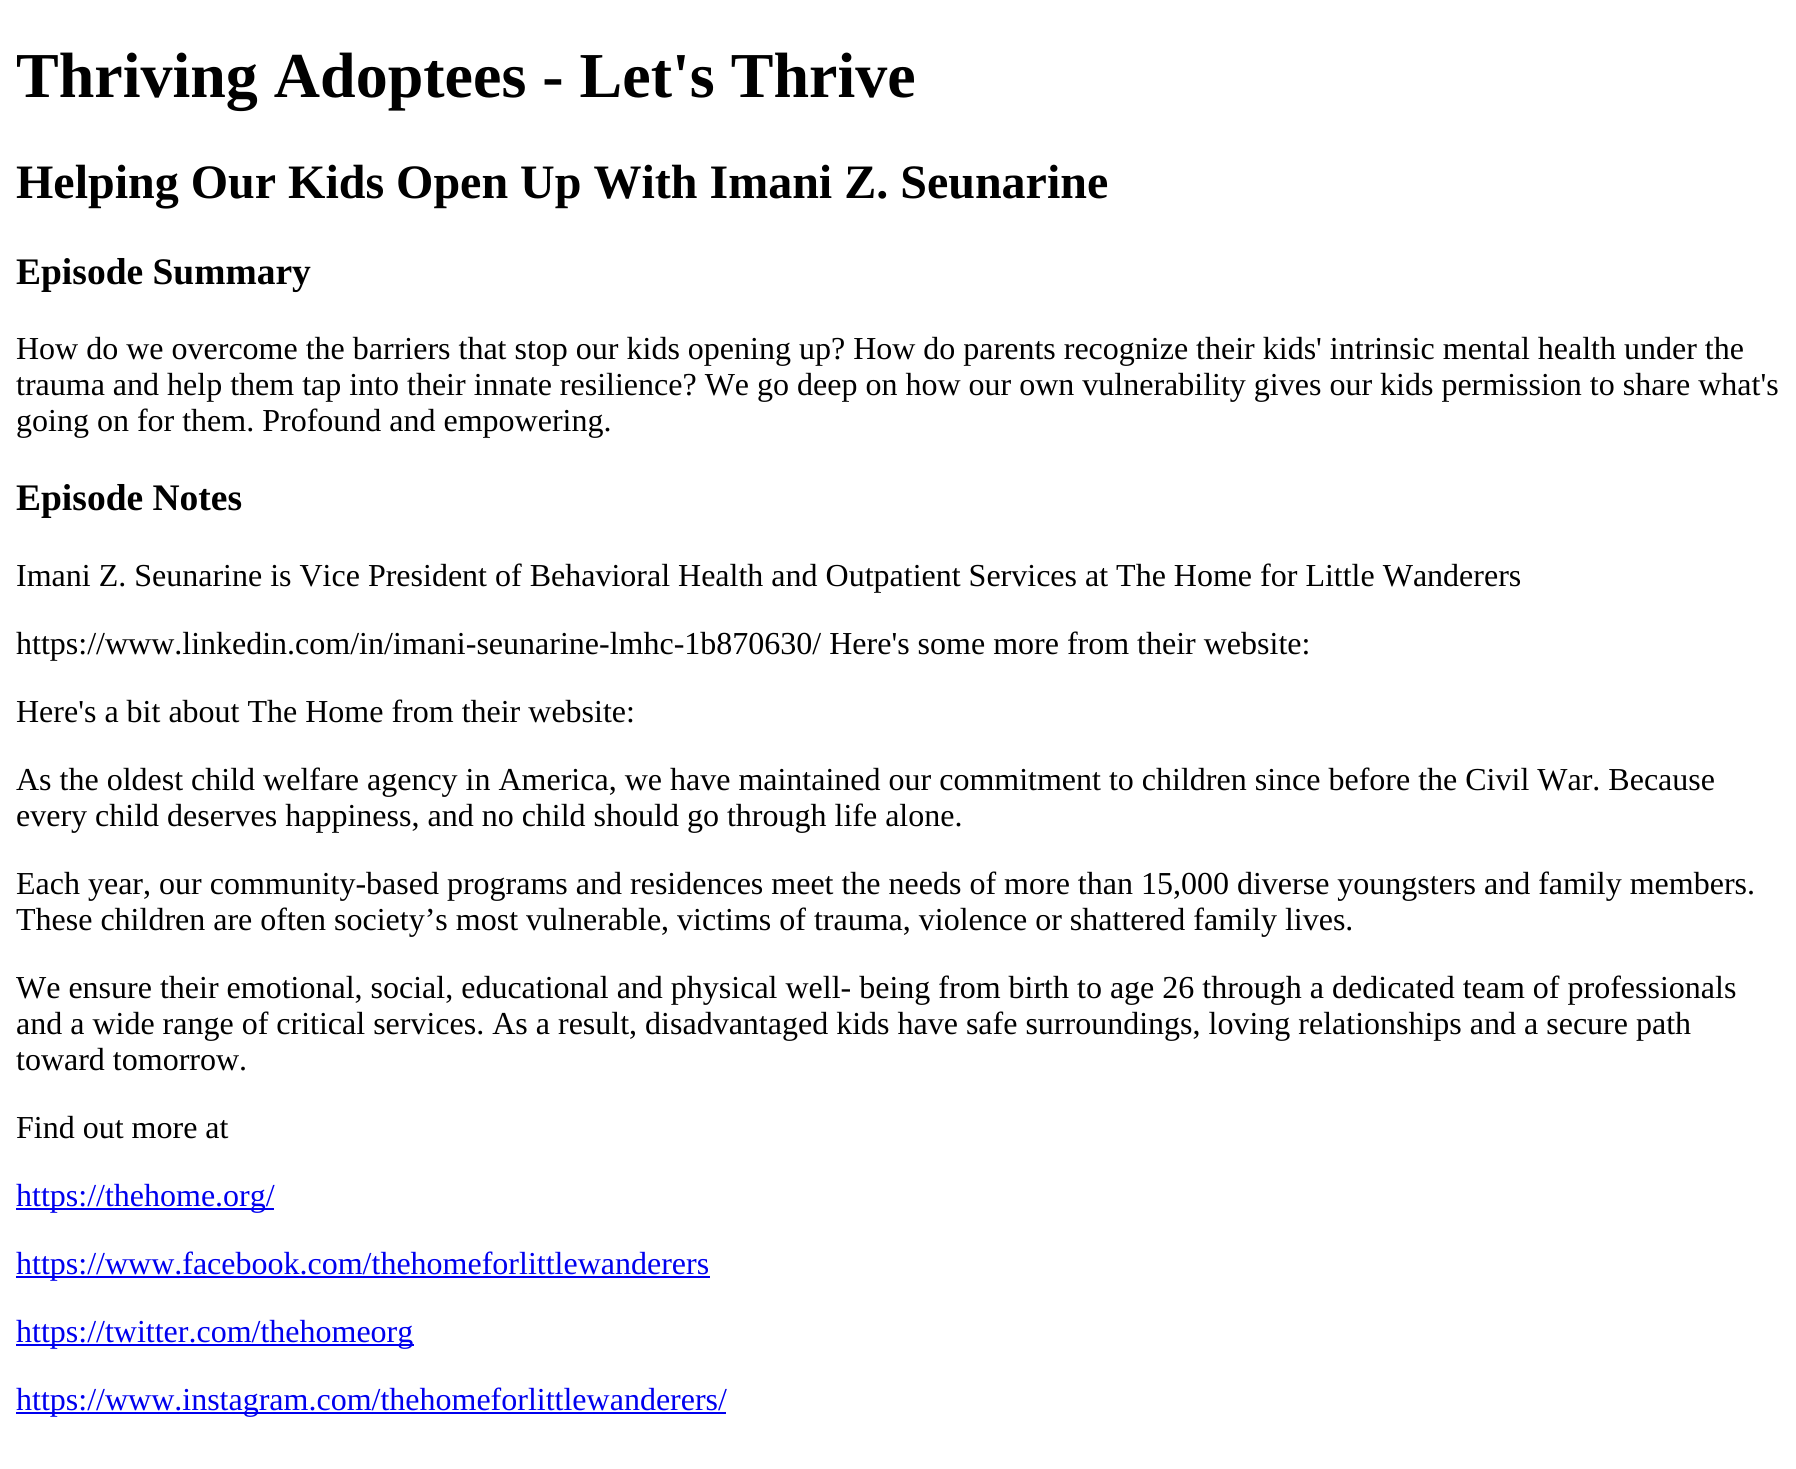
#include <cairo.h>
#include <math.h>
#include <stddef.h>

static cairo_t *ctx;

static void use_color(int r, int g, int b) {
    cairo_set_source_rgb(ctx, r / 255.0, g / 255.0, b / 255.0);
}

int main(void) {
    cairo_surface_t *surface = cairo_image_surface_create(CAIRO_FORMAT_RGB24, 1796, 1469);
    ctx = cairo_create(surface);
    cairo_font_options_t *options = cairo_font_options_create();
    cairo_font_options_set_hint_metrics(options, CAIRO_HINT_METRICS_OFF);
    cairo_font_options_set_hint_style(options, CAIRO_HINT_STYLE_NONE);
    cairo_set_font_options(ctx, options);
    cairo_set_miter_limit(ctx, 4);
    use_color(255, 255, 255);
    cairo_paint(ctx);
    cairo_select_font_face(ctx, "Liberation Serif", CAIRO_FONT_SLANT_NORMAL, CAIRO_FONT_WEIGHT_BOLD);
    cairo_set_font_size(ctx, 64);
    use_color(0, 0, 0);
    cairo_move_to(ctx, 16, 97);
    cairo_show_text(ctx, "Thriving Adoptees - Let's Thrive");
    cairo_set_font_size(ctx, 48);
    cairo_move_to(ctx, 16, 198);
    cairo_show_text(ctx, "Helping Our Kids Open Up With Imani Z. Seunarine");
    cairo_set_font_size(ctx, 37.5);
    cairo_move_to(ctx, 16, 284);
    cairo_show_text(ctx, "Episode Summary");
    cairo_select_font_face(ctx, "Liberation Serif", CAIRO_FONT_SLANT_NORMAL, CAIRO_FONT_WEIGHT_NORMAL);
    cairo_set_font_size(ctx, 32);
    cairo_move_to(ctx, 16, 359);
    cairo_show_text(ctx, "How do we overcome the barriers that stop our kids opening up? How do parents recognize their kids' intrinsic mental health under the");
    cairo_move_to(ctx, 16, 395);
    cairo_show_text(ctx, "trauma and help them tap into their innate resilience? We go deep on how our own vulnerability gives our kids permission to share what's");
    cairo_move_to(ctx, 16, 431);
    cairo_show_text(ctx, "going on for them. Profound and empowering.");
    cairo_select_font_face(ctx, "Liberation Serif", CAIRO_FONT_SLANT_NORMAL, CAIRO_FONT_WEIGHT_BOLD);
    cairo_set_font_size(ctx, 37.5);
    cairo_move_to(ctx, 16, 510);
    cairo_show_text(ctx, "Episode Notes");
    cairo_select_font_face(ctx, "Liberation Serif", CAIRO_FONT_SLANT_NORMAL, CAIRO_FONT_WEIGHT_NORMAL);
    cairo_set_font_size(ctx, 32);
    cairo_move_to(ctx, 16, 586);
    cairo_show_text(ctx, "Imani Z. Seunarine is Vice President of Behavioral Health and Outpatient Services at The Home for Little Wanderers");
    cairo_move_to(ctx, 16, 654);
    cairo_show_text(ctx, "https://www.linkedin.com/in/imani-seunarine-lmhc-1b870630/ Here's some more from their website:");
    cairo_move_to(ctx, 16, 722);
    cairo_show_text(ctx, "Here's a bit about The Home from their website:");
    cairo_move_to(ctx, 16, 790);
    cairo_show_text(ctx, "As the oldest child welfare agency in America, we have maintained our commitment to children since before the Civil War. Because");
    cairo_move_to(ctx, 16, 826);
    cairo_show_text(ctx, "every child deserves happiness, and no child should go through life alone.");
    cairo_move_to(ctx, 16, 894);
    cairo_show_text(ctx, "Each year, our community-based programs and residences meet the needs of more than 15,000 diverse youngsters and family members.");
    cairo_move_to(ctx, 16, 930);
    cairo_show_text(ctx, "These children are often society’s most vulnerable, victims of trauma, violence or shattered family lives.");
    cairo_move_to(ctx, 16, 998);
    cairo_show_text(ctx, "We ensure their emotional, social, educational and physical well- being from birth to age 26 through a dedicated team of professionals");
    cairo_move_to(ctx, 16, 1034);
    cairo_show_text(ctx, "and a wide range of critical services. As a result, disadvantaged kids have safe surroundings, loving relationships and a secure path");
    cairo_move_to(ctx, 16, 1070);
    cairo_show_text(ctx, "toward tomorrow.");
    cairo_move_to(ctx, 16, 1138);
    cairo_show_text(ctx, "Find out more at");
    use_color(0, 0, 238);
    cairo_rectangle(ctx, 16, 1208, 258, 2);
    cairo_fill(ctx);
    cairo_move_to(ctx, 16, 1206);
    cairo_show_text(ctx, "https://thehome.org/");
    cairo_rectangle(ctx, 16, 1276, 694, 2);
    cairo_fill(ctx);
    cairo_move_to(ctx, 16, 1274);
    cairo_show_text(ctx, "https://www.facebook.com/thehomeforlittlewanderers");
    cairo_rectangle(ctx, 16, 1344, 398, 2);
    cairo_fill(ctx);
    cairo_move_to(ctx, 16, 1342);
    cairo_show_text(ctx, "https://twitter.com/thehomeorg");
    cairo_rectangle(ctx, 16, 1412, 710, 2);
    cairo_fill(ctx);
    cairo_move_to(ctx, 16, 1410);
    cairo_show_text(ctx, "https://www.instagram.com/thehomeforlittlewanderers/");
    cairo_surface_write_to_png(surface, "result.png");
    cairo_font_options_destroy(options);
    cairo_destroy(ctx);
    cairo_surface_destroy(surface);
    return 0;
}
